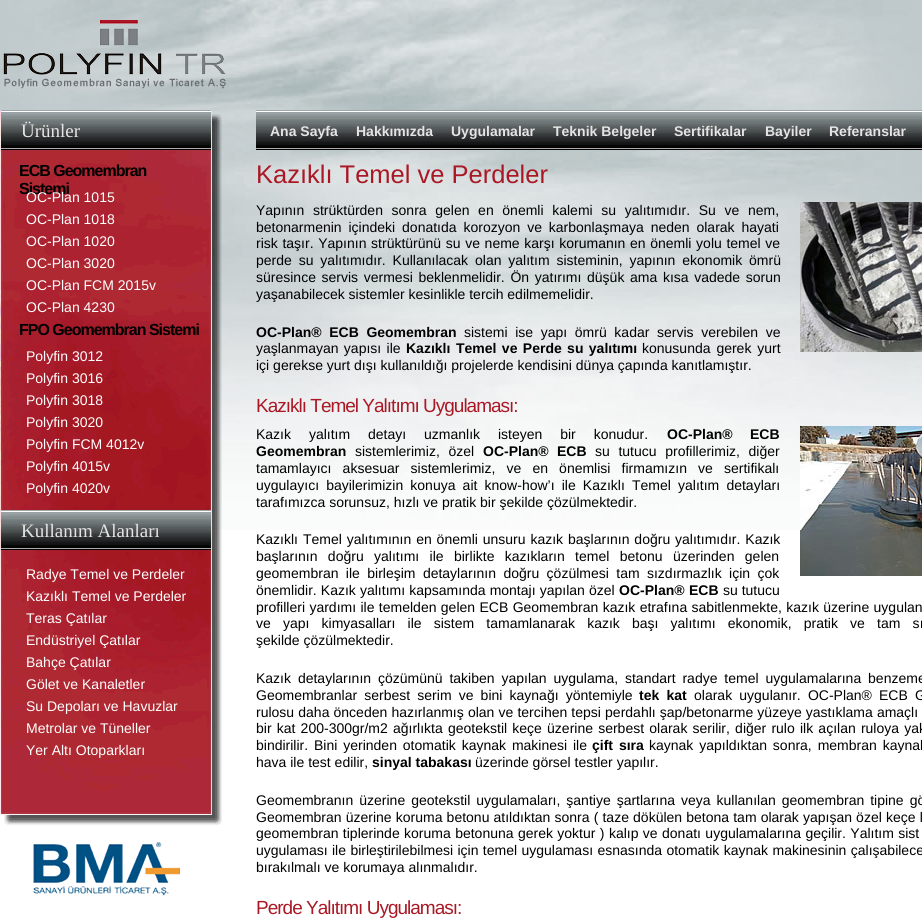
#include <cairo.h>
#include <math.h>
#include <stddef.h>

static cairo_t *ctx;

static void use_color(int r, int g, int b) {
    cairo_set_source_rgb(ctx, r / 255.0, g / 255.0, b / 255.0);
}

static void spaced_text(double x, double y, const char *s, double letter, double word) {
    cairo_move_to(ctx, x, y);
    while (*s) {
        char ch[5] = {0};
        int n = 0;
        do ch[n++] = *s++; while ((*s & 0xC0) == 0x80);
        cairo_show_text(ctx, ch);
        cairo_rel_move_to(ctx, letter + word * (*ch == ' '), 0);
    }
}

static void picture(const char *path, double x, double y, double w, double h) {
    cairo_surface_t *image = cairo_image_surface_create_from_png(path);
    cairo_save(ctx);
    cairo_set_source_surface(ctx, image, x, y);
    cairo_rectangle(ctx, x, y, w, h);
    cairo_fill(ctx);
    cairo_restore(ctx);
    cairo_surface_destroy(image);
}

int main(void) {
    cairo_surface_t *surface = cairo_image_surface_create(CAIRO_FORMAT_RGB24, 922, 919);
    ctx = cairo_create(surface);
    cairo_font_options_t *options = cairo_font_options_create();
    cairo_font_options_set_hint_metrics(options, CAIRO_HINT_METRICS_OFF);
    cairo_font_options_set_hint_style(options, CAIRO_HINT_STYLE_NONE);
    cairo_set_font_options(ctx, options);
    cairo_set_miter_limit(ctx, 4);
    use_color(255, 255, 255);
    cairo_paint(ctx);
    picture("img1.png", 0, 0, 922, 530);
    picture("img2.png", 3, 20, 225, 69);
    picture("img3.png", 0, 110, 222, 715);
    picture("img4.png", 1, 110, 210, 40);
    cairo_select_font_face(ctx, "Liberation Serif", CAIRO_FONT_SLANT_NORMAL, CAIRO_FONT_WEIGHT_NORMAL);
    cairo_set_font_size(ctx, 19);
    use_color(228, 228, 228);
    cairo_move_to(ctx, 21, 137);
    cairo_show_text(ctx, "Ürünler");
    cairo_select_font_face(ctx, "Liberation Sans", CAIRO_FONT_SLANT_NORMAL, CAIRO_FONT_WEIGHT_BOLD);
    cairo_set_font_size(ctx, 16);
    use_color(0, 0, 0);
    spaced_text(19, 176, "ECB Geomembran", -1, 0);
    spaced_text(19, 194, "Sistemi", -1, 0);
    cairo_select_font_face(ctx, "Liberation Sans", CAIRO_FONT_SLANT_NORMAL, CAIRO_FONT_WEIGHT_NORMAL);
    cairo_set_font_size(ctx, 14);
    use_color(255, 255, 255);
    cairo_move_to(ctx, 26, 202);
    cairo_show_text(ctx, "OC-Plan 1015");
    cairo_move_to(ctx, 26, 224);
    cairo_show_text(ctx, "OC-Plan 1018");
    cairo_move_to(ctx, 26, 246);
    cairo_show_text(ctx, "OC-Plan 1020");
    cairo_move_to(ctx, 26, 268);
    cairo_show_text(ctx, "OC-Plan 3020");
    cairo_move_to(ctx, 26, 290);
    cairo_show_text(ctx, "OC-Plan FCM 2015v");
    cairo_move_to(ctx, 26, 312);
    cairo_show_text(ctx, "OC-Plan 4230");
    cairo_select_font_face(ctx, "Liberation Sans", CAIRO_FONT_SLANT_NORMAL, CAIRO_FONT_WEIGHT_BOLD);
    cairo_set_font_size(ctx, 16);
    use_color(0, 0, 0);
    spaced_text(19, 335, "FPO Geomembran Sistemi", -1, 0);
    cairo_select_font_face(ctx, "Liberation Sans", CAIRO_FONT_SLANT_NORMAL, CAIRO_FONT_WEIGHT_NORMAL);
    cairo_set_font_size(ctx, 14);
    use_color(255, 255, 255);
    cairo_move_to(ctx, 26, 361);
    cairo_show_text(ctx, "Polyfin 3012");
    cairo_move_to(ctx, 26, 383);
    cairo_show_text(ctx, "Polyfin 3016");
    cairo_move_to(ctx, 26, 405);
    cairo_show_text(ctx, "Polyfin 3018");
    cairo_move_to(ctx, 26, 427);
    cairo_show_text(ctx, "Polyfin 3020");
    cairo_move_to(ctx, 26, 449);
    cairo_show_text(ctx, "Polyfin FCM 4012v");
    cairo_move_to(ctx, 26, 471);
    cairo_show_text(ctx, "Polyfin 4015v");
    cairo_move_to(ctx, 26, 493);
    cairo_show_text(ctx, "Polyfin 4020v");
    picture("img4.png", 1, 510, 210, 40);
    cairo_select_font_face(ctx, "Liberation Serif", CAIRO_FONT_SLANT_NORMAL, CAIRO_FONT_WEIGHT_NORMAL);
    cairo_set_font_size(ctx, 19);
    use_color(228, 228, 228);
    cairo_move_to(ctx, 21, 537);
    cairo_show_text(ctx, "Kullanım Alanları");
    cairo_select_font_face(ctx, "Liberation Sans", CAIRO_FONT_SLANT_NORMAL, CAIRO_FONT_WEIGHT_NORMAL);
    cairo_set_font_size(ctx, 14);
    use_color(255, 255, 255);
    cairo_move_to(ctx, 26, 579);
    cairo_show_text(ctx, "Radye Temel ve Perdeler");
    cairo_move_to(ctx, 26, 601);
    cairo_show_text(ctx, "Kazıklı Temel ve Perdeler");
    cairo_move_to(ctx, 26, 623);
    cairo_show_text(ctx, "Teras Çatılar");
    cairo_move_to(ctx, 26, 645);
    cairo_show_text(ctx, "Endüstriyel Çatılar");
    cairo_move_to(ctx, 26, 667);
    cairo_show_text(ctx, "Bahçe Çatılar");
    cairo_move_to(ctx, 26, 689);
    cairo_show_text(ctx, "Gölet ve Kanaletler");
    cairo_move_to(ctx, 26, 711);
    cairo_show_text(ctx, "Su Depoları ve Havuzlar");
    cairo_move_to(ctx, 26, 733);
    cairo_show_text(ctx, "Metrolar ve Tüneller");
    cairo_move_to(ctx, 26, 755);
    cairo_show_text(ctx, "Yer Altı Otoparkları");
    picture("img5.png", 33, 842, 147, 54);
    picture("img6.png", 256, 110, 666, 40);
    cairo_select_font_face(ctx, "Liberation Sans", CAIRO_FONT_SLANT_NORMAL, CAIRO_FONT_WEIGHT_BOLD);
    use_color(228, 228, 228);
    cairo_move_to(ctx, 270, 136);
    cairo_show_text(ctx, "Ana Sayfa");
    cairo_move_to(ctx, 356, 136);
    cairo_show_text(ctx, "Hakkımızda");
    cairo_move_to(ctx, 451, 136);
    cairo_show_text(ctx, "Uygulamalar");
    cairo_move_to(ctx, 553, 136);
    cairo_show_text(ctx, "Teknik Belgeler");
    cairo_move_to(ctx, 674, 136);
    cairo_show_text(ctx, "Sertifikalar");
    cairo_move_to(ctx, 765, 136);
    cairo_show_text(ctx, "Bayiler");
    cairo_move_to(ctx, 829, 136);
    cairo_show_text(ctx, "Referanslar");
    cairo_select_font_face(ctx, "Liberation Sans", CAIRO_FONT_SLANT_NORMAL, CAIRO_FONT_WEIGHT_NORMAL);
    cairo_set_font_size(ctx, 25.5);
    use_color(170, 24, 37);
    cairo_move_to(ctx, 256, 183);
    cairo_show_text(ctx, "Kazıklı Temel ve Perdeler");
    cairo_set_font_size(ctx, 14);
    use_color(0, 0, 0);
    spaced_text(256, 215, "Yapının strüktürden sonra gelen en önemli kalemi su yalıtımıdır. Su ve nem,", 0, 4.75);
    picture("img7.png", 800, 202, 122, 150);
    spaced_text(256, 232, "betonarmenin içindeki donatıda korozyon ve karbonlaşmaya neden olarak hayati", 0, 3);
    spaced_text(256, 248, "risk taşır. Yapının strüktürünü su ve neme karşı korumanın en önemli yolu temel ve", 0, 0.75);
    spaced_text(256, 265, "perde su yalıtımıdır. Kullanılacak olan yalıtım sisteminin, yapının ekonomik ömrü", 0, 3);
    spaced_text(256, 282, "süresince servis vermesi beklenmelidir. Ön yatırımı düşük ama kısa vadede sorun", 0, 1.75);
    cairo_move_to(ctx, 256, 299);
    cairo_show_text(ctx, "yaşanabilecek sistemler kesinlikle tercih edilmemelidir.");
    cairo_select_font_face(ctx, "Liberation Sans", CAIRO_FONT_SLANT_NORMAL, CAIRO_FONT_WEIGHT_BOLD);
    spaced_text(256, 337, "OC-Plan® ECB Geomembran", 0, 3.75);
    cairo_select_font_face(ctx, "Liberation Sans", CAIRO_FONT_SLANT_NORMAL, CAIRO_FONT_WEIGHT_NORMAL);
    spaced_text(464, 337, "sistemi ise yapı ömrü kadar servis verebilen ve", 0, 3.75);
    spaced_text(256, 353, "yaşlanmayan yapısı ile", 0, 1.5);
    cairo_select_font_face(ctx, "Liberation Sans", CAIRO_FONT_SLANT_NORMAL, CAIRO_FONT_WEIGHT_BOLD);
    cairo_move_to(ctx, 406, 353);
    cairo_show_text(ctx, "Kazıklı");
    spaced_text(456, 353, "Temel ve Perde su yalıtımı", 0, 1.5);
    cairo_select_font_face(ctx, "Liberation Sans", CAIRO_FONT_SLANT_NORMAL, CAIRO_FONT_WEIGHT_NORMAL);
    spaced_text(642, 353, "konusunda gerek yurt", 0, 2);
    cairo_move_to(ctx, 256, 370);
    cairo_show_text(ctx, "içi gerekse yurt dışı kullanıldığı projelerde kendisini dünya çapında kanıtlamıştır.");
    cairo_set_font_size(ctx, 19);
    use_color(170, 24, 37);
    spaced_text(256, 412, "Kazıklı Temel Yalıtımı Uygulaması:", -1, 0);
    cairo_set_font_size(ctx, 14);
    use_color(0, 0, 0);
    spaced_text(256, 439, "Kazık yalıtım detayı uzmanlık isteyen bir konudur.", 0, 14);
    cairo_select_font_face(ctx, "Liberation Sans", CAIRO_FONT_SLANT_NORMAL, CAIRO_FONT_WEIGHT_BOLD);
    cairo_move_to(ctx, 667, 439);
    cairo_show_text(ctx, "OC-Plan®");
    cairo_move_to(ctx, 750, 439);
    cairo_show_text(ctx, "ECB");
    picture("img8.png", 800, 426, 122, 150);
    cairo_move_to(ctx, 256, 456);
    cairo_show_text(ctx, "Geomembran");
    cairo_select_font_face(ctx, "Liberation Sans", CAIRO_FONT_SLANT_NORMAL, CAIRO_FONT_WEIGHT_NORMAL);
    spaced_text(355, 456, "sistemlerimiz, özel", 0, 4.75);
    cairo_select_font_face(ctx, "Liberation Sans", CAIRO_FONT_SLANT_NORMAL, CAIRO_FONT_WEIGHT_BOLD);
    cairo_move_to(ctx, 483, 456);
    cairo_show_text(ctx, "OC-Plan®");
    cairo_move_to(ctx, 557, 456);
    cairo_show_text(ctx, "ECB");
    cairo_select_font_face(ctx, "Liberation Sans", CAIRO_FONT_SLANT_NORMAL, CAIRO_FONT_WEIGHT_NORMAL);
    spaced_text(595, 456, "su tutucu profillerimiz, diğer", 0, 4.75);
    spaced_text(256, 473, "tamamlayıcı aksesuar sistemlerimiz, ve en önemlisi firmamızın ve sertifikalı", 0, 7.25);
    spaced_text(256, 490, "uygulayıcı bayilerimizin konuya ait know-how’ı ile Kazıklı Temel yalıtım detayları", 0, 3.25);
    cairo_move_to(ctx, 256, 507);
    cairo_show_text(ctx, "tarafımızca sorunsuz, hızlı ve pratik bir şekilde çözülmektedir.");
    spaced_text(256, 544, "Kazıklı Temel yalıtımının en önemli unsuru kazık başlarının doğru yalıtımıdır. Kazık", 0, 1);
    spaced_text(256, 561, "başlarının doğru yalıtımı ile birlikte kazıkların temel betonu üzerinden gelen", 0, 6.5);
    spaced_text(256, 578, "geomembran ile birleşim detaylarının doğru çözülmesi tam sızdırmazlık için çok", 0, 3.5);
    spaced_text(256, 595, "önemlidir. Kazık yalıtımı kapsamında montajı yapılan özel", 0, 0.25);
    cairo_select_font_face(ctx, "Liberation Sans", CAIRO_FONT_SLANT_NORMAL, CAIRO_FONT_WEIGHT_BOLD);
    cairo_move_to(ctx, 619, 595);
    cairo_show_text(ctx, "OC-Plan®");
    cairo_move_to(ctx, 689, 595);
    cairo_show_text(ctx, "ECB");
    cairo_select_font_face(ctx, "Liberation Sans", CAIRO_FONT_SLANT_NORMAL, CAIRO_FONT_WEIGHT_NORMAL);
    cairo_move_to(ctx, 723, 595);
    cairo_show_text(ctx, "su tutucu");
    spaced_text(256, 612, "profilleri yardımı ile temelden gelen ECB Geomembran kazık etrafına sabitlenmekte, kazık üzerine uygulan", 0, 0.5);
    spaced_text(256, 628, "ve yapı kimyasalları ile sistem tamamlanarak kazık başı yalıtımı ekonomik, pratik ve tam sı", 0, 8.25);
    cairo_move_to(ctx, 256, 645);
    cairo_show_text(ctx, "şekilde çözülmektedir.");
    spaced_text(256, 683, "Kazık detaylarının çözümünü takiben yapılan uygulama, standart radye temel uygulamalarına benzeme", 0, 3);
    spaced_text(256, 700, "Geomembranlar serbest serim ve bini kaynağı yöntemiyle", 0, 3.25);
    cairo_select_font_face(ctx, "Liberation Sans", CAIRO_FONT_SLANT_NORMAL, CAIRO_FONT_WEIGHT_BOLD);
    spaced_text(639, 700, "tek kat", 0, 3.25);
    cairo_select_font_face(ctx, "Liberation Sans", CAIRO_FONT_SLANT_NORMAL, CAIRO_FONT_WEIGHT_NORMAL);
    spaced_text(694, 700, "olarak uygulanır. OC-Plan® ECB G", 0, 3.25);
    spaced_text(256, 717, "rulosu daha önceden hazırlanmış olan ve tercihen tepsi perdahlı şap/betonarme yüzeye yastıklama amaçlı", 0, 0.25);
    spaced_text(256, 733, "bir kat 200-300gr/m2 ağırlıkta geotekstil keçe üzerine serbest olarak serilir, diğer rulo ilk açılan ruloya yak", 0, 1.3);
    spaced_text(256, 750, "bindirilir. Bini yerinden otomatik kaynak makinesi ile", 0, 2);
    cairo_select_font_face(ctx, "Liberation Sans", CAIRO_FONT_SLANT_NORMAL, CAIRO_FONT_WEIGHT_BOLD);
    spaced_text(592, 750, "çift sıra", 0, 2);
    cairo_select_font_face(ctx, "Liberation Sans", CAIRO_FONT_SLANT_NORMAL, CAIRO_FONT_WEIGHT_NORMAL);
    spaced_text(649, 750, "kaynak yapıldıktan sonra, membran kaynak", 0, 2);
    cairo_move_to(ctx, 256, 767);
    cairo_show_text(ctx, "hava ile test edilir,");
    cairo_select_font_face(ctx, "Liberation Sans", CAIRO_FONT_SLANT_NORMAL, CAIRO_FONT_WEIGHT_BOLD);
    cairo_move_to(ctx, 372, 767);
    cairo_show_text(ctx, "sinyal tabakası");
    cairo_select_font_face(ctx, "Liberation Sans", CAIRO_FONT_SLANT_NORMAL, CAIRO_FONT_WEIGHT_NORMAL);
    cairo_move_to(ctx, 475, 767);
    cairo_show_text(ctx, "üzerinde görsel testler yapılır.");
    spaced_text(256, 805, "Geomembranın üzerine geotekstil uygulamaları, şantiye şartlarına veya kullanılan geomembran tipine gö", 0, 2.1);
    spaced_text(256, 822, "Geomembran üzerine koruma betonu atıldıktan sonra ( taze dökülen betona tam olarak yapışan özel keçe l", 0, 0.25);
    spaced_text(256, 838, "geomembran tiplerinde koruma betonuna gerek yoktur ) kalıp ve donatı uygulamalarına geçilir. Yalıtım sist", 0, 0.5);
    spaced_text(256, 855, "uygulaması ile birleştirilebilmesi için temel uygulaması esnasında otomatik kaynak makinesinin çalışabilece", 0, 0.5);
    cairo_move_to(ctx, 256, 872);
    cairo_show_text(ctx, "bırakılmalı ve korumaya alınmalıdır.");
    cairo_set_font_size(ctx, 19);
    use_color(170, 24, 37);
    spaced_text(256, 914, "Perde Yalıtımı Uygulaması:", -1, 0);
    cairo_surface_write_to_png(surface, "result.png");
    cairo_font_options_destroy(options);
    cairo_destroy(ctx);
    cairo_surface_destroy(surface);
    return 0;
}
